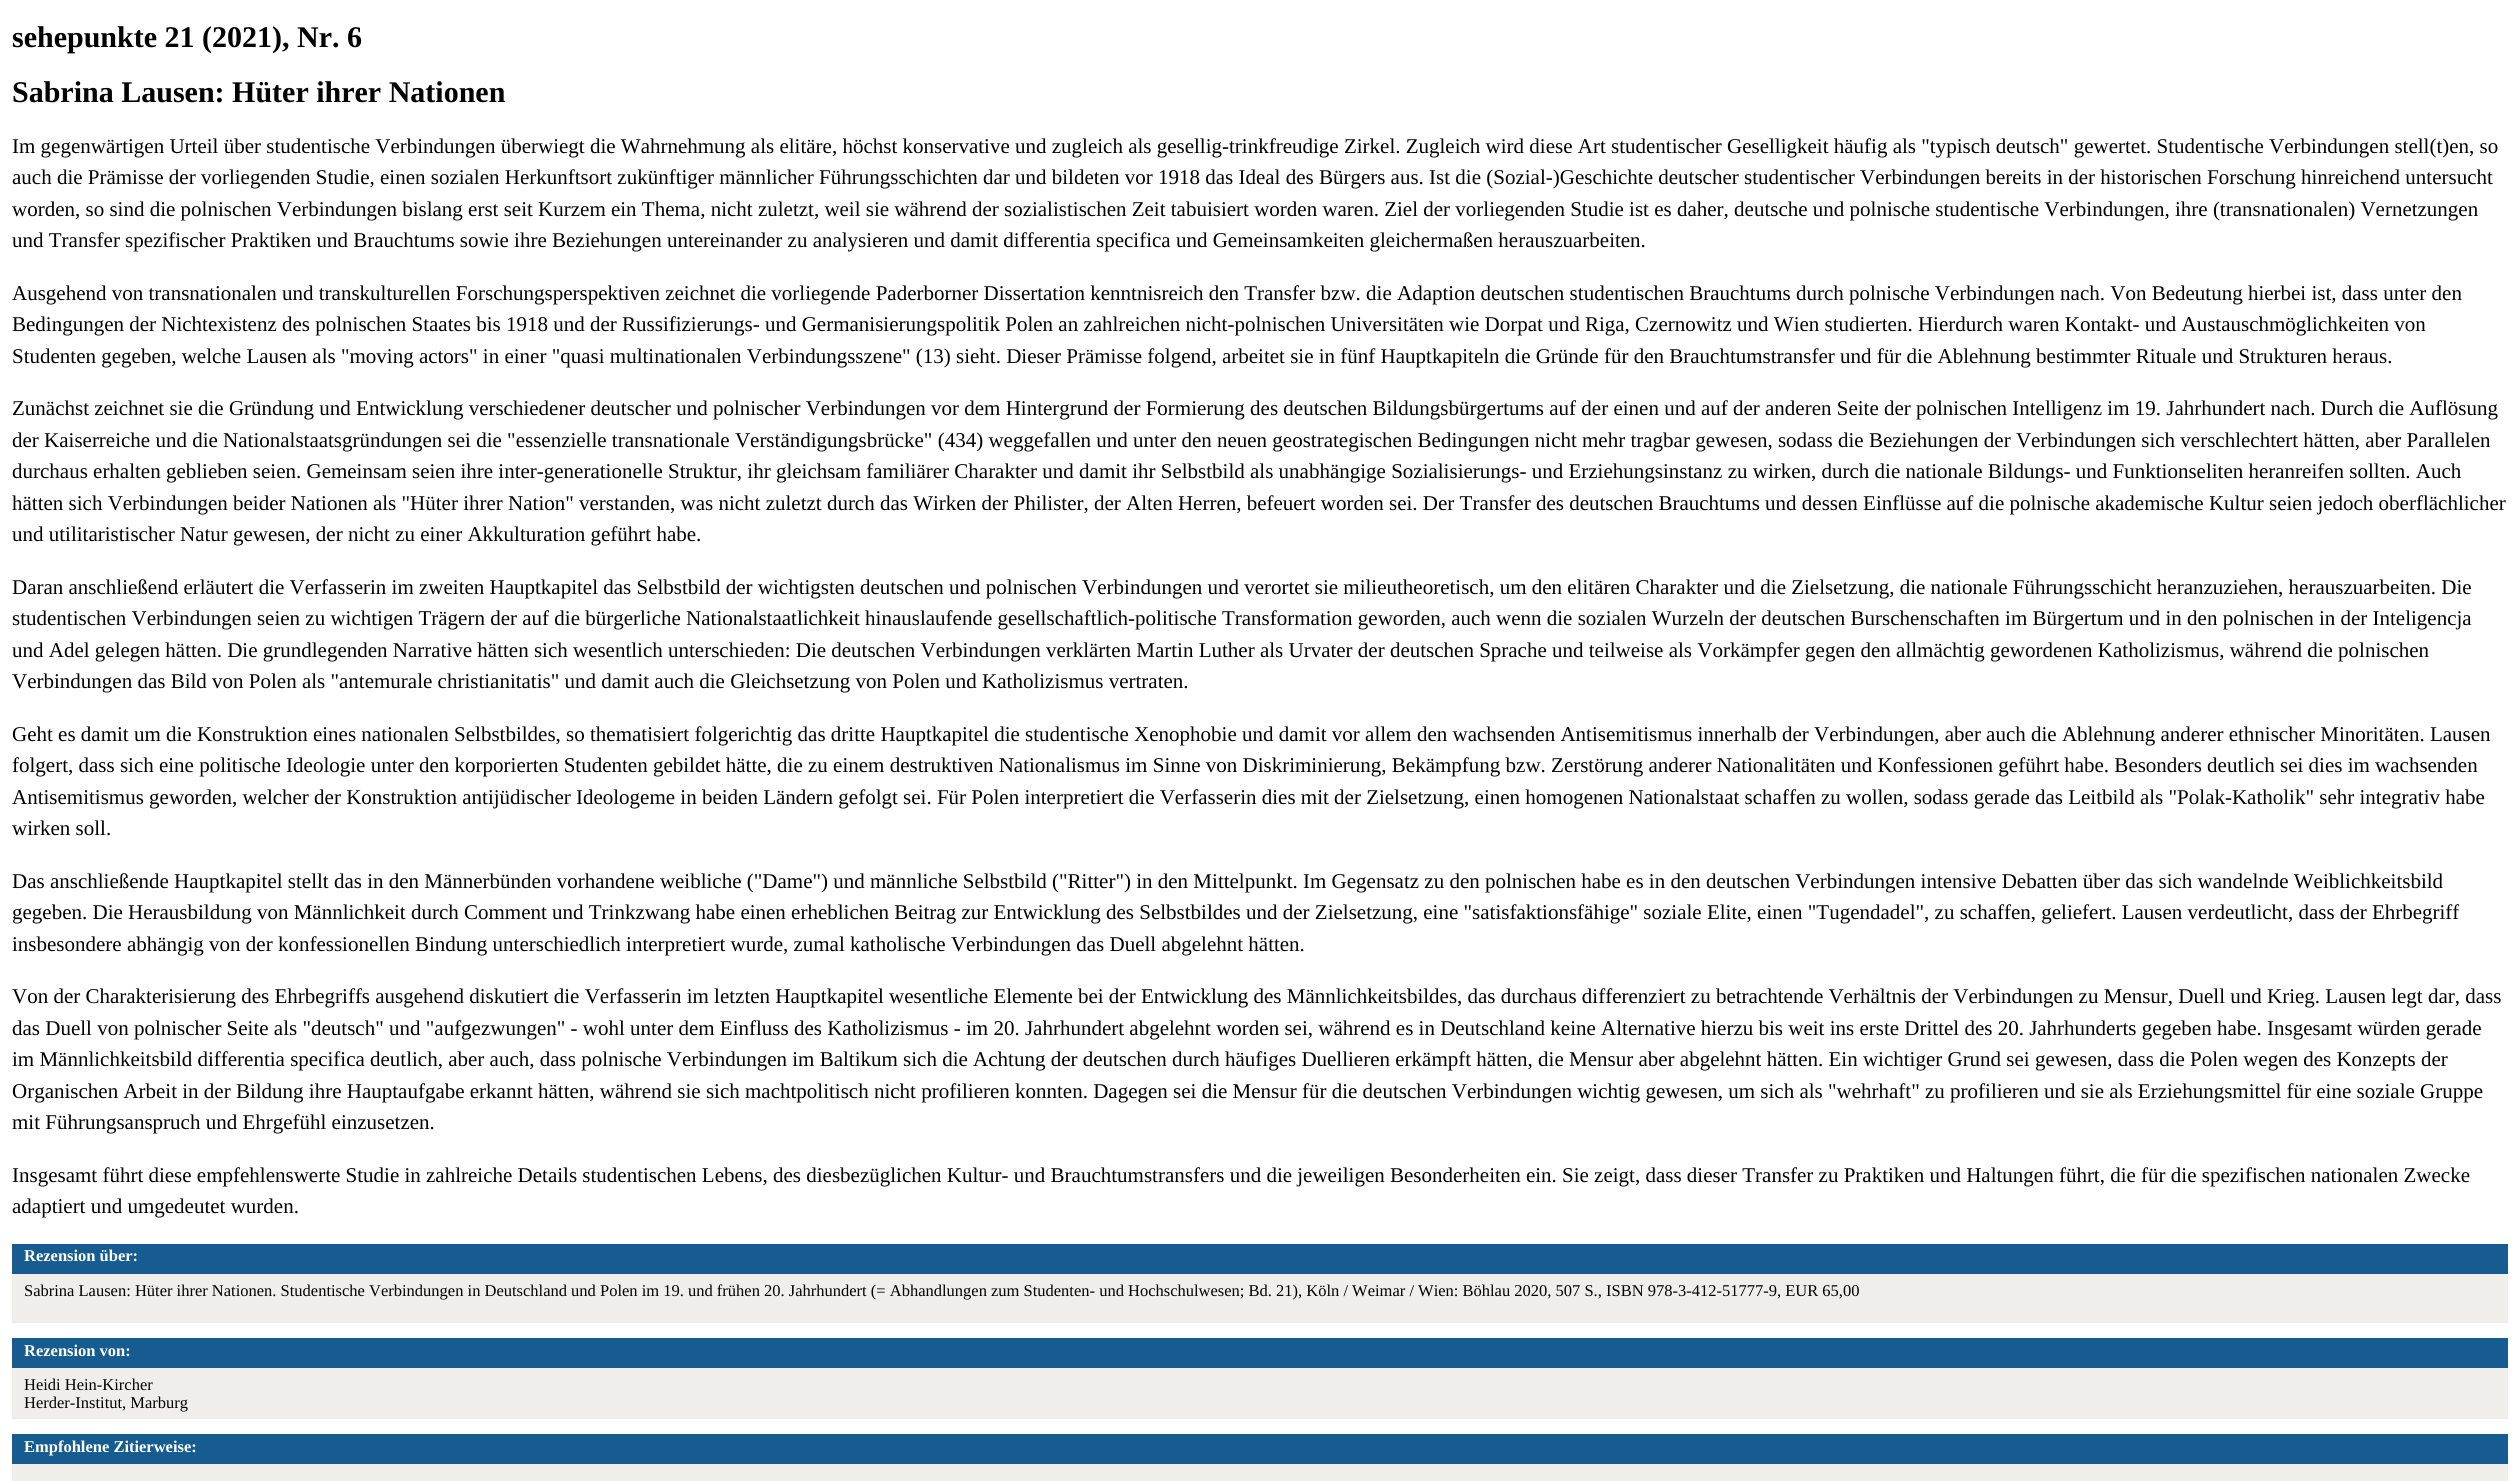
#include <cairo.h>
#include <math.h>
#include <stddef.h>

static cairo_t *ctx;

static void use_color(int r, int g, int b) {
    cairo_set_source_rgb(ctx, r / 255.0, g / 255.0, b / 255.0);
}

int main(void) {
    cairo_surface_t *surface = cairo_image_surface_create(CAIRO_FORMAT_RGB24, 2519, 1481);
    ctx = cairo_create(surface);
    cairo_font_options_t *options = cairo_font_options_create();
    cairo_font_options_set_hint_metrics(options, CAIRO_HINT_METRICS_OFF);
    cairo_font_options_set_hint_style(options, CAIRO_HINT_STYLE_NONE);
    cairo_set_font_options(ctx, options);
    cairo_set_miter_limit(ctx, 4);
    use_color(255, 255, 255);
    cairo_paint(ctx);
    cairo_select_font_face(ctx, "Liberation Serif", CAIRO_FONT_SLANT_NORMAL, CAIRO_FONT_WEIGHT_BOLD);
    cairo_set_font_size(ctx, 30);
    use_color(0, 0, 0);
    cairo_move_to(ctx, 12, 47);
    cairo_show_text(ctx, "sehepunkte 21 (2021), Nr. 6");
    cairo_move_to(ctx, 12, 102);
    cairo_show_text(ctx, "Sabrina Lausen: Hüter ihrer Nationen");
    cairo_select_font_face(ctx, "Liberation Serif", CAIRO_FONT_SLANT_NORMAL, CAIRO_FONT_WEIGHT_NORMAL);
    cairo_set_font_size(ctx, 21);
    cairo_move_to(ctx, 12, 153);
    cairo_show_text(ctx, "Im gegenwärtigen Urteil über studentische Verbindungen überwiegt die Wahrnehmung als elitäre, höchst konservative und zugleich als gesellig-trinkfreudige Zirkel. Zugleich wird diese Art studentischer Geselligkeit häufig als \"typisch deutsch\" gewertet. Studentische Verbindungen stell(t)en, so");
    cairo_move_to(ctx, 12, 184);
    cairo_show_text(ctx, "auch die Prämisse der vorliegenden Studie, einen sozialen Herkunftsort zukünftiger männlicher Führungsschichten dar und bildeten vor 1918 das Ideal des Bürgers aus. Ist die (Sozial-)Geschichte deutscher studentischer Verbindungen bereits in der historischen Forschung hinreichend untersucht");
    cairo_move_to(ctx, 12, 216);
    cairo_show_text(ctx, "worden, so sind die polnischen Verbindungen bislang erst seit Kurzem ein Thema, nicht zuletzt, weil sie während der sozialistischen Zeit tabuisiert worden waren. Ziel der vorliegenden Studie ist es daher, deutsche und polnische studentische Verbindungen, ihre (transnationalen) Vernetzungen");
    cairo_move_to(ctx, 12, 247);
    cairo_show_text(ctx, "und Transfer spezifischer Praktiken und Brauchtums sowie ihre Beziehungen untereinander zu analysieren und damit differentia specifica und Gemeinsamkeiten gleichermaßen herauszuarbeiten.");
    cairo_move_to(ctx, 12, 300);
    cairo_show_text(ctx, "Ausgehend von transnationalen und transkulturellen Forschungsperspektiven zeichnet die vorliegende Paderborner Dissertation kenntnisreich den Transfer bzw. die Adaption deutschen studentischen Brauchtums durch polnische Verbindungen nach. Von Bedeutung hierbei ist, dass unter den");
    cairo_move_to(ctx, 12, 331);
    cairo_show_text(ctx, "Bedingungen der Nichtexistenz des polnischen Staates bis 1918 und der Russifizierungs- und Germanisierungspolitik Polen an zahlreichen nicht-polnischen Universitäten wie Dorpat und Riga, Czernowitz und Wien studierten. Hierdurch waren Kontakt- und Austauschmöglichkeiten von");
    cairo_move_to(ctx, 12, 363);
    cairo_show_text(ctx, "Studenten gegeben, welche Lausen als \"moving actors\" in einer \"quasi multinationalen Verbindungsszene\" (13) sieht. Dieser Prämisse folgend, arbeitet sie in fünf Hauptkapiteln die Gründe für den Brauchtumstransfer und für die Ablehnung bestimmter Rituale und Strukturen heraus.");
    cairo_move_to(ctx, 12, 415);
    cairo_show_text(ctx, "Zunächst zeichnet sie die Gründung und Entwicklung verschiedener deutscher und polnischer Verbindungen vor dem Hintergrund der Formierung des deutschen Bildungsbürgertums auf der einen und auf der anderen Seite der polnischen Intelligenz im 19. Jahrhundert nach. Durch die Auflösung");
    cairo_move_to(ctx, 12, 447);
    cairo_show_text(ctx, "der Kaiserreiche und die Nationalstaatsgründungen sei die \"essenzielle transnationale Verständigungsbrücke\" (434) weggefallen und unter den neuen geostrategischen Bedingungen nicht mehr tragbar gewesen, sodass die Beziehungen der Verbindungen sich verschlechtert hätten, aber Parallelen");
    cairo_move_to(ctx, 12, 478);
    cairo_show_text(ctx, "durchaus erhalten geblieben seien. Gemeinsam seien ihre inter-generationelle Struktur, ihr gleichsam familiärer Charakter und damit ihr Selbstbild als unabhängige Sozialisierungs- und Erziehungsinstanz zu wirken, durch die nationale Bildungs- und Funktionseliten heranreifen sollten. Auch");
    cairo_move_to(ctx, 12, 510);
    cairo_show_text(ctx, "hätten sich Verbindungen beider Nationen als \"Hüter ihrer Nation\" verstanden, was nicht zuletzt durch das Wirken der Philister, der Alten Herren, befeuert worden sei. Der Transfer des deutschen Brauchtums und dessen Einflüsse auf die polnische akademische Kultur seien jedoch oberflächlicher");
    cairo_move_to(ctx, 12, 541);
    cairo_show_text(ctx, "und utilitaristischer Natur gewesen, der nicht zu einer Akkulturation geführt habe.");
    cairo_move_to(ctx, 12, 594);
    cairo_show_text(ctx, "Daran anschließend erläutert die Verfasserin im zweiten Hauptkapitel das Selbstbild der wichtigsten deutschen und polnischen Verbindungen und verortet sie milieutheoretisch, um den elitären Charakter und die Zielsetzung, die nationale Führungsschicht heranzuziehen, herauszuarbeiten. Die");
    cairo_move_to(ctx, 12, 625);
    cairo_show_text(ctx, "studentischen Verbindungen seien zu wichtigen Trägern der auf die bürgerliche Nationalstaatlichkeit hinauslaufende gesellschaftlich-politische Transformation geworden, auch wenn die sozialen Wurzeln der deutschen Burschenschaften im Bürgertum und in den polnischen in der Inteligencja");
    cairo_move_to(ctx, 12, 657);
    cairo_show_text(ctx, "und Adel gelegen hätten. Die grundlegenden Narrative hätten sich wesentlich unterschieden: Die deutschen Verbindungen verklärten Martin Luther als Urvater der deutschen Sprache und teilweise als Vorkämpfer gegen den allmächtig gewordenen Katholizismus, während die polnischen");
    cairo_move_to(ctx, 12, 688);
    cairo_show_text(ctx, "Verbindungen das Bild von Polen als \"antemurale christianitatis\" und damit auch die Gleichsetzung von Polen und Katholizismus vertraten.");
    cairo_move_to(ctx, 12, 741);
    cairo_show_text(ctx, "Geht es damit um die Konstruktion eines nationalen Selbstbildes, so thematisiert folgerichtig das dritte Hauptkapitel die studentische Xenophobie und damit vor allem den wachsenden Antisemitismus innerhalb der Verbindungen, aber auch die Ablehnung anderer ethnischer Minoritäten. Lausen");
    cairo_move_to(ctx, 12, 772);
    cairo_show_text(ctx, "folgert, dass sich eine politische Ideologie unter den korporierten Studenten gebildet hätte, die zu einem destruktiven Nationalismus im Sinne von Diskriminierung, Bekämpfung bzw. Zerstörung anderer Nationalitäten und Konfessionen geführt habe. Besonders deutlich sei dies im wachsenden");
    cairo_move_to(ctx, 12, 804);
    cairo_show_text(ctx, "Antisemitismus geworden, welcher der Konstruktion antijüdischer Ideologeme in beiden Ländern gefolgt sei. Für Polen interpretiert die Verfasserin dies mit der Zielsetzung, einen homogenen Nationalstaat schaffen zu wollen, sodass gerade das Leitbild als \"Polak-Katholik\" sehr integrativ habe");
    cairo_move_to(ctx, 12, 835);
    cairo_show_text(ctx, "wirken soll.");
    cairo_move_to(ctx, 12, 888);
    cairo_show_text(ctx, "Das anschließende Hauptkapitel stellt das in den Männerbünden vorhandene weibliche (\"Dame\") und männliche Selbstbild (\"Ritter\") in den Mittelpunkt. Im Gegensatz zu den polnischen habe es in den deutschen Verbindungen intensive Debatten über das sich wandelnde Weiblichkeitsbild");
    cairo_move_to(ctx, 12, 919);
    cairo_show_text(ctx, "gegeben. Die Herausbildung von Männlichkeit durch Comment und Trinkzwang habe einen erheblichen Beitrag zur Entwicklung des Selbstbildes und der Zielsetzung, eine \"satisfaktionsfähige\" soziale Elite, einen \"Tugendadel\", zu schaffen, geliefert. Lausen verdeutlicht, dass der Ehrbegriff");
    cairo_move_to(ctx, 12, 951);
    cairo_show_text(ctx, "insbesondere abhängig von der konfessionellen Bindung unterschiedlich interpretiert wurde, zumal katholische Verbindungen das Duell abgelehnt hätten.");
    cairo_move_to(ctx, 12, 1003);
    cairo_show_text(ctx, "Von der Charakterisierung des Ehrbegriffs ausgehend diskutiert die Verfasserin im letzten Hauptkapitel wesentliche Elemente bei der Entwicklung des Männlichkeitsbildes, das durchaus differenziert zu betrachtende Verhältnis der Verbindungen zu Mensur, Duell und Krieg. Lausen legt dar, dass");
    cairo_move_to(ctx, 12, 1035);
    cairo_show_text(ctx, "das Duell von polnischer Seite als \"deutsch\" und \"aufgezwungen\" - wohl unter dem Einfluss des Katholizismus - im 20. Jahrhundert abgelehnt worden sei, während es in Deutschland keine Alternative hierzu bis weit ins erste Drittel des 20. Jahrhunderts gegeben habe. Insgesamt würden gerade");
    cairo_move_to(ctx, 12, 1066);
    cairo_show_text(ctx, "im Männlichkeitsbild differentia specifica deutlich, aber auch, dass polnische Verbindungen im Baltikum sich die Achtung der deutschen durch häufiges Duellieren erkämpft hätten, die Mensur aber abgelehnt hätten. Ein wichtiger Grund sei gewesen, dass die Polen wegen des Konzepts der");
    cairo_move_to(ctx, 12, 1098);
    cairo_show_text(ctx, "Organischen Arbeit in der Bildung ihre Hauptaufgabe erkannt hätten, während sie sich machtpolitisch nicht profilieren konnten. Dagegen sei die Mensur für die deutschen Verbindungen wichtig gewesen, um sich als \"wehrhaft\" zu profilieren und sie als Erziehungsmittel für eine soziale Gruppe");
    cairo_move_to(ctx, 12, 1129);
    cairo_show_text(ctx, "mit Führungsanspruch und Ehrgefühl einzusetzen.");
    cairo_move_to(ctx, 12, 1182);
    cairo_show_text(ctx, "Insgesamt führt diese empfehlenswerte Studie in zahlreiche Details studentischen Lebens, des diesbezüglichen Kultur- und Brauchtumstransfers und die jeweiligen Besonderheiten ein. Sie zeigt, dass dieser Transfer zu Praktiken und Haltungen führt, die für die spezifischen nationalen Zwecke");
    cairo_move_to(ctx, 12, 1213);
    cairo_show_text(ctx, "adaptiert und umgedeutet wurden.");
    use_color(22, 92, 145);
    cairo_rectangle(ctx, 12, 1244, 2496, 30);
    cairo_fill(ctx);
    cairo_select_font_face(ctx, "Liberation Serif", CAIRO_FONT_SLANT_NORMAL, CAIRO_FONT_WEIGHT_BOLD);
    cairo_set_font_size(ctx, 16.5);
    use_color(255, 255, 255);
    cairo_move_to(ctx, 24, 1261);
    cairo_show_text(ctx, "Rezension über:");
    use_color(239, 238, 234);
    cairo_rectangle(ctx, 12, 1274, 2496, 49);
    cairo_fill(ctx);
    cairo_select_font_face(ctx, "Liberation Serif", CAIRO_FONT_SLANT_NORMAL, CAIRO_FONT_WEIGHT_NORMAL);
    use_color(0, 0, 0);
    cairo_move_to(ctx, 24, 1296);
    cairo_show_text(ctx, "Sabrina Lausen: Hüter ihrer Nationen. Studentische Verbindungen in Deutschland und Polen im 19. und frühen 20. Jahrhundert (= Abhandlungen zum Studenten- und Hochschulwesen; Bd. 21), Köln / Weimar / Wien: Böhlau 2020, 507 S., ISBN 978-3-412-51777-9, EUR 65,00");
    use_color(22, 92, 145);
    cairo_rectangle(ctx, 12, 1338, 2496, 30);
    cairo_fill(ctx);
    cairo_select_font_face(ctx, "Liberation Serif", CAIRO_FONT_SLANT_NORMAL, CAIRO_FONT_WEIGHT_BOLD);
    use_color(255, 255, 255);
    cairo_move_to(ctx, 24, 1356);
    cairo_show_text(ctx, "Rezension von:");
    use_color(239, 238, 234);
    cairo_rectangle(ctx, 12, 1368, 2496, 51);
    cairo_fill(ctx);
    cairo_select_font_face(ctx, "Liberation Serif", CAIRO_FONT_SLANT_NORMAL, CAIRO_FONT_WEIGHT_NORMAL);
    use_color(0, 0, 0);
    cairo_move_to(ctx, 24, 1390);
    cairo_show_text(ctx, "Heidi Hein-Kircher");
    cairo_move_to(ctx, 24, 1408);
    cairo_show_text(ctx, "Herder-Institut, Marburg");
    use_color(22, 92, 145);
    cairo_rectangle(ctx, 12, 1434, 2496, 30);
    cairo_fill(ctx);
    cairo_select_font_face(ctx, "Liberation Serif", CAIRO_FONT_SLANT_NORMAL, CAIRO_FONT_WEIGHT_BOLD);
    use_color(255, 255, 255);
    cairo_move_to(ctx, 24, 1452);
    cairo_show_text(ctx, "Empfohlene Zitierweise:");
    use_color(239, 238, 234);
    cairo_rectangle(ctx, 12, 1464, 2496, 17);
    cairo_fill(ctx);
    cairo_surface_write_to_png(surface, "result.png");
    cairo_font_options_destroy(options);
    cairo_destroy(ctx);
    cairo_surface_destroy(surface);
    return 0;
}
